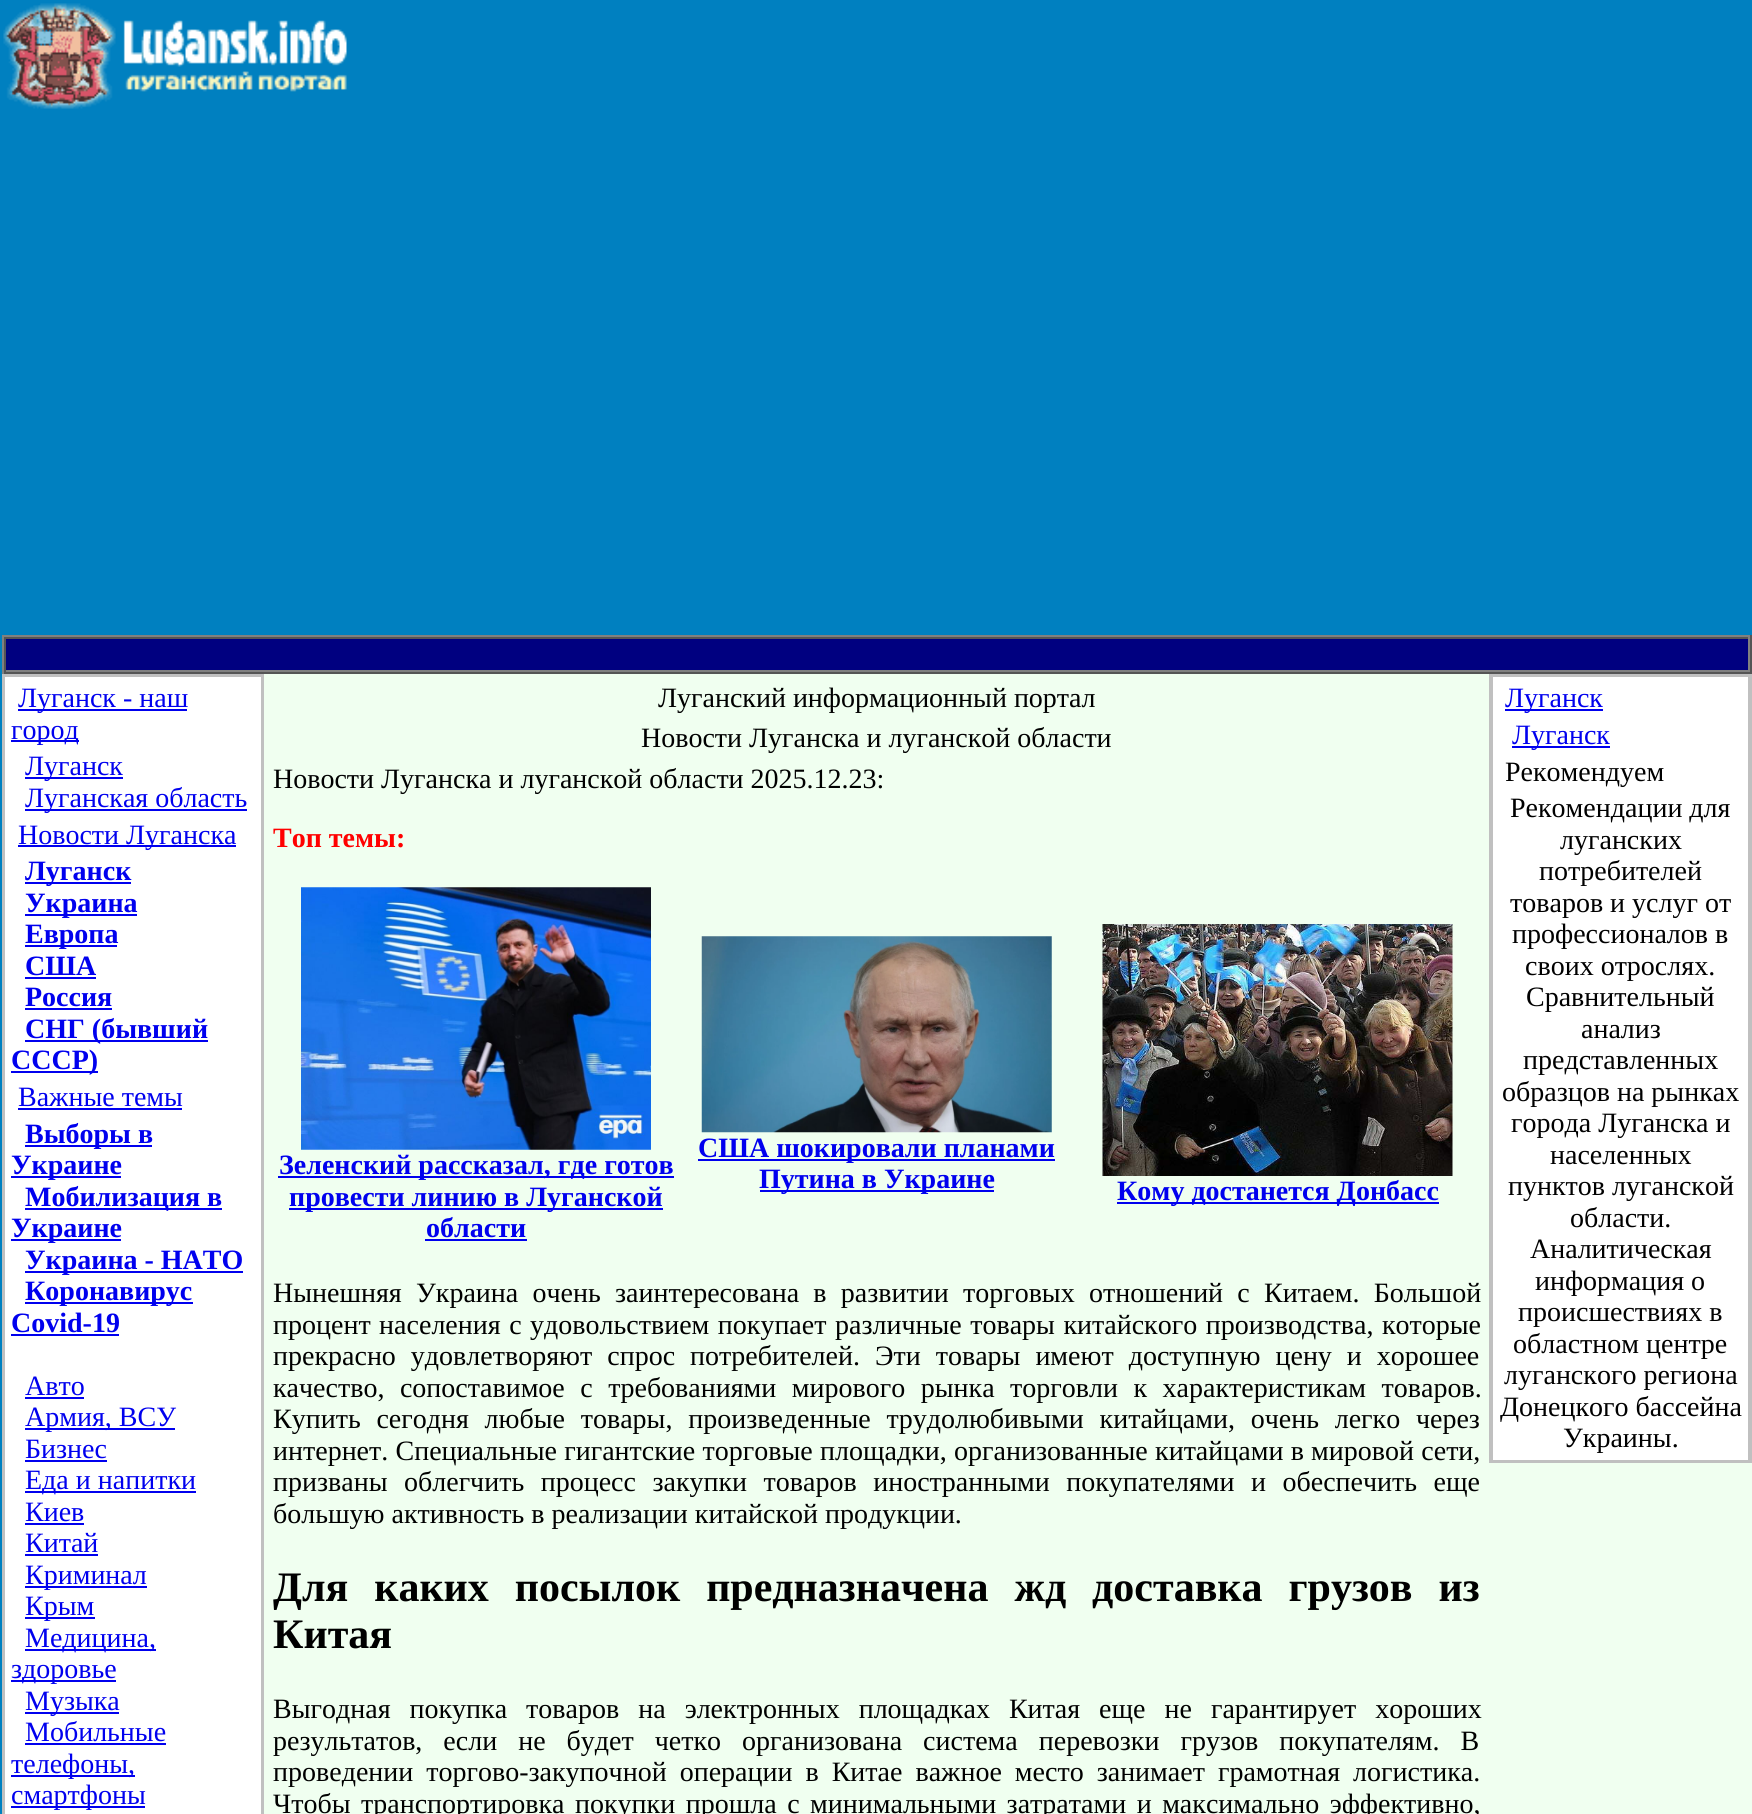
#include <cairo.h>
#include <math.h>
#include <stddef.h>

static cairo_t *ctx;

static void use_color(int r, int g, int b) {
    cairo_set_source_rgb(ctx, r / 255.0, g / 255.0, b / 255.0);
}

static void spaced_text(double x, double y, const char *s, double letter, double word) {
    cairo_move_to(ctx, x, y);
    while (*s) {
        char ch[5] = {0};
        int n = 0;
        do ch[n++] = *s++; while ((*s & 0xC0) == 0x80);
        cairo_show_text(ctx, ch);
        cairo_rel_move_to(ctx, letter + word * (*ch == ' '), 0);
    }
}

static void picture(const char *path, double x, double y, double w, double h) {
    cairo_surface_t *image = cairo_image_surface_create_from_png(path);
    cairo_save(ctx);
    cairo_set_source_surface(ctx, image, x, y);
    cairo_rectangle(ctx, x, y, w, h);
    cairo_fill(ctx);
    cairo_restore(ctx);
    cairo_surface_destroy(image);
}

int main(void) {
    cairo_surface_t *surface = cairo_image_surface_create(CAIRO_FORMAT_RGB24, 1752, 1814);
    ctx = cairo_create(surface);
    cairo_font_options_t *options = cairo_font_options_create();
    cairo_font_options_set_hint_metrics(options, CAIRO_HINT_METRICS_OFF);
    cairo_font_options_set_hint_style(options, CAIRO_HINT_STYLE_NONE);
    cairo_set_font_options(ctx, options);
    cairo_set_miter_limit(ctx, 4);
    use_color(0, 128, 192);
    cairo_paint(ctx);
    picture("img1.png", 3, 3, 344, 106);
    use_color(240, 255, 240);
    cairo_rectangle(ctx, 264, 674, 1488, 1140);
    cairo_fill(ctx);
    use_color(0, 0, 128);
    cairo_rectangle(ctx, 6, 639, 1742, 31);
    cairo_fill(ctx);
    use_color(128, 128, 128);
    cairo_rectangle(ctx, 2, 635, 1750, 2);
    cairo_fill(ctx);
    use_color(85, 85, 85);
    cairo_rectangle(ctx, 1750, 635, 2, 39);
    cairo_fill(ctx);
    cairo_rectangle(ctx, 2, 672, 1750, 2);
    cairo_fill(ctx);
    use_color(128, 128, 128);
    cairo_rectangle(ctx, 2, 635, 2, 39);
    cairo_fill(ctx);
    use_color(85, 85, 85);
    cairo_rectangle(ctx, 4, 637, 1746, 2);
    cairo_fill(ctx);
    use_color(128, 128, 128);
    cairo_rectangle(ctx, 1748, 637, 2, 35);
    cairo_fill(ctx);
    cairo_rectangle(ctx, 4, 670, 1746, 2);
    cairo_fill(ctx);
    use_color(85, 85, 85);
    cairo_rectangle(ctx, 4, 637, 2, 35);
    cairo_fill(ctx);
    use_color(192, 192, 192);
    cairo_rectangle(ctx, 2, 674, 262, 1140);
    cairo_fill(ctx);
    use_color(255, 255, 255);
    cairo_rectangle(ctx, 5, 677, 256, 1137);
    cairo_fill(ctx);
    use_color(0, 0, 238);
    cairo_rectangle(ctx, 18, 709, 169, 2);
    cairo_fill(ctx);
    cairo_select_font_face(ctx, "Liberation Serif", CAIRO_FONT_SLANT_NORMAL, CAIRO_FONT_WEIGHT_NORMAL);
    cairo_set_font_size(ctx, 28);
    cairo_move_to(ctx, 18, 707);
    cairo_show_text(ctx, "Луганcк - наш");
    cairo_rectangle(ctx, 11, 740, 68, 2);
    cairo_fill(ctx);
    cairo_move_to(ctx, 11, 739);
    cairo_show_text(ctx, "город");
    cairo_rectangle(ctx, 25, 777, 98, 2);
    cairo_fill(ctx);
    cairo_move_to(ctx, 25, 775);
    cairo_show_text(ctx, "Луганск");
    cairo_rectangle(ctx, 25, 809, 222, 2);
    cairo_fill(ctx);
    cairo_move_to(ctx, 25, 807);
    cairo_show_text(ctx, "Луганская область");
    cairo_rectangle(ctx, 18, 845, 218, 2);
    cairo_fill(ctx);
    cairo_move_to(ctx, 18, 844);
    cairo_show_text(ctx, "Новости Луганска");
    cairo_rectangle(ctx, 25, 882, 106, 2);
    cairo_fill(ctx);
    cairo_select_font_face(ctx, "Liberation Serif", CAIRO_FONT_SLANT_NORMAL, CAIRO_FONT_WEIGHT_BOLD);
    cairo_move_to(ctx, 25, 880);
    cairo_show_text(ctx, "Луганск");
    cairo_rectangle(ctx, 25, 914, 112, 2);
    cairo_fill(ctx);
    cairo_move_to(ctx, 25, 912);
    cairo_show_text(ctx, "Украина");
    cairo_rectangle(ctx, 25, 945, 92, 2);
    cairo_fill(ctx);
    cairo_move_to(ctx, 25, 943);
    cairo_show_text(ctx, "Европа");
    cairo_move_to(ctx, 25, 975);
    cairo_show_text(ctx, "США");
    cairo_rectangle(ctx, 25, 977, 71, 2);
    cairo_fill(ctx);
    cairo_move_to(ctx, 25, 1006);
    cairo_show_text(ctx, "Россия");
    cairo_rectangle(ctx, 25, 1008, 87, 2);
    cairo_fill(ctx);
    cairo_rectangle(ctx, 25, 1040, 183, 2);
    cairo_fill(ctx);
    cairo_move_to(ctx, 25, 1038);
    cairo_show_text(ctx, "СНГ (бывший");
    cairo_rectangle(ctx, 11, 1071, 87, 2);
    cairo_fill(ctx);
    cairo_move_to(ctx, 11, 1069);
    cairo_show_text(ctx, "СССР)");
    cairo_select_font_face(ctx, "Liberation Serif", CAIRO_FONT_SLANT_NORMAL, CAIRO_FONT_WEIGHT_NORMAL);
    cairo_move_to(ctx, 18, 1106);
    cairo_show_text(ctx, "Важные темы");
    cairo_rectangle(ctx, 18, 1108, 164, 2);
    cairo_fill(ctx);
    cairo_rectangle(ctx, 25, 1145, 127, 2);
    cairo_fill(ctx);
    cairo_select_font_face(ctx, "Liberation Serif", CAIRO_FONT_SLANT_NORMAL, CAIRO_FONT_WEIGHT_BOLD);
    cairo_move_to(ctx, 25, 1143);
    cairo_show_text(ctx, "Выборы в");
    cairo_rectangle(ctx, 11, 1176, 110, 2);
    cairo_fill(ctx);
    cairo_move_to(ctx, 11, 1174);
    cairo_show_text(ctx, "Украине");
    cairo_rectangle(ctx, 25, 1208, 197, 2);
    cairo_fill(ctx);
    cairo_move_to(ctx, 25, 1206);
    cairo_show_text(ctx, "Мобилизация в");
    cairo_rectangle(ctx, 11, 1239, 110, 2);
    cairo_fill(ctx);
    cairo_move_to(ctx, 11, 1237);
    cairo_show_text(ctx, "Украине");
    cairo_rectangle(ctx, 25, 1271, 218, 2);
    cairo_fill(ctx);
    cairo_move_to(ctx, 25, 1269);
    cairo_show_text(ctx, "Украина - НАТО");
    cairo_rectangle(ctx, 25, 1302, 168, 2);
    cairo_fill(ctx);
    cairo_move_to(ctx, 25, 1300);
    cairo_show_text(ctx, "Коронавирус");
    cairo_move_to(ctx, 11, 1332);
    cairo_show_text(ctx, "Covid-19");
    cairo_rectangle(ctx, 11, 1334, 108, 2);
    cairo_fill(ctx);
    cairo_select_font_face(ctx, "Liberation Serif", CAIRO_FONT_SLANT_NORMAL, CAIRO_FONT_WEIGHT_NORMAL);
    cairo_move_to(ctx, 25, 1395);
    cairo_show_text(ctx, "Авто");
    cairo_rectangle(ctx, 25, 1397, 59, 2);
    cairo_fill(ctx);
    cairo_rectangle(ctx, 25, 1428, 150, 2);
    cairo_fill(ctx);
    cairo_move_to(ctx, 25, 1426);
    cairo_show_text(ctx, "Армия, ВСУ");
    cairo_move_to(ctx, 25, 1458);
    cairo_show_text(ctx, "Бизнес");
    cairo_rectangle(ctx, 25, 1460, 82, 2);
    cairo_fill(ctx);
    cairo_rectangle(ctx, 25, 1491, 171, 2);
    cairo_fill(ctx);
    cairo_move_to(ctx, 25, 1489);
    cairo_show_text(ctx, "Еда и напитки");
    cairo_move_to(ctx, 25, 1521);
    cairo_show_text(ctx, "Киев");
    cairo_rectangle(ctx, 25, 1523, 59, 2);
    cairo_fill(ctx);
    cairo_move_to(ctx, 25, 1552);
    cairo_show_text(ctx, "Китай");
    cairo_rectangle(ctx, 25, 1554, 73, 2);
    cairo_fill(ctx);
    cairo_rectangle(ctx, 25, 1586, 122, 2);
    cairo_fill(ctx);
    cairo_move_to(ctx, 25, 1584);
    cairo_show_text(ctx, "Криминал");
    cairo_rectangle(ctx, 25, 1617, 70, 2);
    cairo_fill(ctx);
    cairo_move_to(ctx, 25, 1615);
    cairo_show_text(ctx, "Крым");
    cairo_rectangle(ctx, 25, 1649, 131, 2);
    cairo_fill(ctx);
    cairo_move_to(ctx, 25, 1647);
    cairo_show_text(ctx, "Медицина,");
    cairo_rectangle(ctx, 11, 1680, 105, 2);
    cairo_fill(ctx);
    cairo_move_to(ctx, 11, 1678);
    cairo_show_text(ctx, "здоровье");
    cairo_rectangle(ctx, 25, 1712, 94, 2);
    cairo_fill(ctx);
    cairo_move_to(ctx, 25, 1710);
    cairo_show_text(ctx, "Музыка");
    cairo_move_to(ctx, 25, 1741);
    cairo_show_text(ctx, "Мобильные");
    cairo_rectangle(ctx, 25, 1743, 141, 2);
    cairo_fill(ctx);
    cairo_rectangle(ctx, 11, 1775, 124, 2);
    cairo_fill(ctx);
    cairo_move_to(ctx, 11, 1773);
    cairo_show_text(ctx, "телефоны,");
    cairo_rectangle(ctx, 11, 1806, 134, 2);
    cairo_fill(ctx);
    cairo_move_to(ctx, 11, 1804);
    cairo_show_text(ctx, "смартфоны");
    use_color(0, 0, 0);
    cairo_move_to(ctx, 658, 707);
    cairo_show_text(ctx, "Луганский информационный портал");
    cairo_move_to(ctx, 641, 747);
    cairo_show_text(ctx, "Новости Луганска и луганской области");
    cairo_move_to(ctx, 273, 788);
    cairo_show_text(ctx, "Новости Луганска и луганской области 2025.12.23:");
    cairo_select_font_face(ctx, "Liberation Serif", CAIRO_FONT_SLANT_NORMAL, CAIRO_FONT_WEIGHT_BOLD);
    use_color(255, 0, 0);
    cairo_move_to(ctx, 273, 847);
    cairo_show_text(ctx, "Топ темы:");
    picture("img2.png", 301, 887, 350, 263);
    use_color(0, 0, 238);
    cairo_rectangle(ctx, 278, 1176, 396, 2);
    cairo_fill(ctx);
    cairo_move_to(ctx, 279, 1174);
    cairo_show_text(ctx, "Зеленский рассказал, где готов");
    cairo_rectangle(ctx, 289, 1208, 374, 2);
    cairo_fill(ctx);
    cairo_move_to(ctx, 289, 1206);
    cairo_show_text(ctx, "провести линию в Луганской");
    cairo_move_to(ctx, 426, 1237);
    cairo_show_text(ctx, "области");
    cairo_rectangle(ctx, 425, 1239, 102, 2);
    cairo_fill(ctx);
    picture("img3.png", 701, 936, 351, 197);
    cairo_rectangle(ctx, 698, 1159, 357, 2);
    cairo_fill(ctx);
    cairo_move_to(ctx, 698, 1157);
    cairo_show_text(ctx, "США шокировали планами");
    cairo_rectangle(ctx, 760, 1190, 234, 2);
    cairo_fill(ctx);
    cairo_move_to(ctx, 759, 1188);
    cairo_show_text(ctx, "Путина в Украине");
    picture("img4.png", 1102, 924, 351, 252);
    cairo_rectangle(ctx, 1117, 1202, 322, 2);
    cairo_fill(ctx);
    cairo_move_to(ctx, 1117, 1200);
    cairo_show_text(ctx, "Кому достанется Донбасс");
    cairo_select_font_face(ctx, "Liberation Serif", CAIRO_FONT_SLANT_NORMAL, CAIRO_FONT_WEIGHT_NORMAL);
    use_color(0, 0, 0);
    spaced_text(273, 1302, "Нынешняя Украина очень заинтересована в развитии торговых отношений с Китаем. Большой", 0, 7.25);
    spaced_text(273, 1334, "процент населения с удовольствием покупает различные товары китайского производства, которые", 0, 1.5);
    spaced_text(273, 1365, "прекрасно удовлетворяют спрос потребителей. Эти товары имеют доступную цену и хорошее", 0, 8);
    spaced_text(273, 1397, "качество, сопоставимое с требованиями мирового рынка торговли к характеристикам товаров.", 0, 8.5);
    spaced_text(273, 1428, "Купить сегодня любые товары, произведенные трудолюбивыми китайцами, очень легко через", 0, 8.75);
    spaced_text(273, 1460, "интернет. Специальные гигантские торговые площадки, организованные китайцами в мировой сети,", 0, 0.25);
    spaced_text(273, 1491, "призваны облегчить процесс закупки товаров иностранными покупателями и обеспечить еще", 0, 9.5);
    cairo_move_to(ctx, 273, 1523);
    cairo_show_text(ctx, "большую активность в реализации китайской продукции.");
    cairo_select_font_face(ctx, "Liberation Serif", CAIRO_FONT_SLANT_NORMAL, CAIRO_FONT_WEIGHT_BOLD);
    cairo_set_font_size(ctx, 42);
    spaced_text(273, 1601, "Для каких посылок предназначена жд доставка грузов из", 0, 15.5);
    cairo_move_to(ctx, 273, 1648);
    cairo_show_text(ctx, "Китая");
    cairo_select_font_face(ctx, "Liberation Serif", CAIRO_FONT_SLANT_NORMAL, CAIRO_FONT_WEIGHT_NORMAL);
    cairo_set_font_size(ctx, 28);
    spaced_text(273, 1718, "Выгодная покупка товаров на электронных площадках Китая еще не гарантирует хороших", 0, 12);
    spaced_text(273, 1750, "результатов, если не будет четко организована система перевозки грузов покупателям. В", 0, 14);
    spaced_text(273, 1781, "проведении торгово-закупочной операции в Китае важное место занимает грамотная логистика.", 0, 6);
    spaced_text(273, 1813, "Чтобы транспортировка покупки прошла с минимальными затратами и максимально эффективно,", 0, 3.5);
    use_color(192, 192, 192);
    cairo_rectangle(ctx, 1489, 674, 263, 789);
    cairo_fill(ctx);
    use_color(255, 255, 255);
    cairo_rectangle(ctx, 1493, 677, 255, 783);
    cairo_fill(ctx);
    use_color(0, 0, 238);
    cairo_rectangle(ctx, 1505, 709, 98, 2);
    cairo_fill(ctx);
    cairo_move_to(ctx, 1505, 707);
    cairo_show_text(ctx, "Луганск");
    cairo_rectangle(ctx, 1512, 746, 98, 2);
    cairo_fill(ctx);
    cairo_move_to(ctx, 1512, 744);
    cairo_show_text(ctx, "Луганск");
    use_color(0, 0, 0);
    cairo_move_to(ctx, 1505, 781);
    cairo_show_text(ctx, "Рекомендуем");
    cairo_move_to(ctx, 1510, 817);
    cairo_show_text(ctx, "Рекомендации для");
    cairo_move_to(ctx, 1560, 849);
    cairo_show_text(ctx, "луганских");
    cairo_move_to(ctx, 1539, 880);
    cairo_show_text(ctx, "потребителей");
    cairo_move_to(ctx, 1510, 912);
    cairo_show_text(ctx, "товаров и услуг от");
    cairo_move_to(ctx, 1512, 943);
    cairo_show_text(ctx, "профессионалов в");
    cairo_move_to(ctx, 1525, 975);
    cairo_show_text(ctx, "своих отрослях.");
    cairo_move_to(ctx, 1526, 1006);
    cairo_show_text(ctx, "Сравнительный");
    cairo_move_to(ctx, 1581, 1038);
    cairo_show_text(ctx, "анализ");
    cairo_move_to(ctx, 1523, 1069);
    cairo_show_text(ctx, "представленных");
    cairo_move_to(ctx, 1502, 1101);
    cairo_show_text(ctx, "образцов на рынках");
    cairo_move_to(ctx, 1511, 1132);
    cairo_show_text(ctx, "города Луганска и");
    cairo_move_to(ctx, 1550, 1164);
    cairo_show_text(ctx, "населенных");
    cairo_move_to(ctx, 1508, 1195);
    cairo_show_text(ctx, "пунктов луганской");
    cairo_move_to(ctx, 1570, 1227);
    cairo_show_text(ctx, "области.");
    cairo_move_to(ctx, 1530, 1258);
    cairo_show_text(ctx, "Аналитическая");
    cairo_move_to(ctx, 1535, 1290);
    cairo_show_text(ctx, "информация о");
    cairo_move_to(ctx, 1518, 1321);
    cairo_show_text(ctx, "происшествиях в");
    cairo_move_to(ctx, 1513, 1353);
    cairo_show_text(ctx, "областном центре");
    cairo_move_to(ctx, 1504, 1384);
    cairo_show_text(ctx, "луганского региона");
    cairo_move_to(ctx, 1500, 1416);
    cairo_show_text(ctx, "Донецкого бассейна");
    cairo_move_to(ctx, 1563, 1447);
    cairo_show_text(ctx, "Украины.");
    cairo_surface_write_to_png(surface, "result.png");
    cairo_font_options_destroy(options);
    cairo_destroy(ctx);
    cairo_surface_destroy(surface);
    return 0;
}
